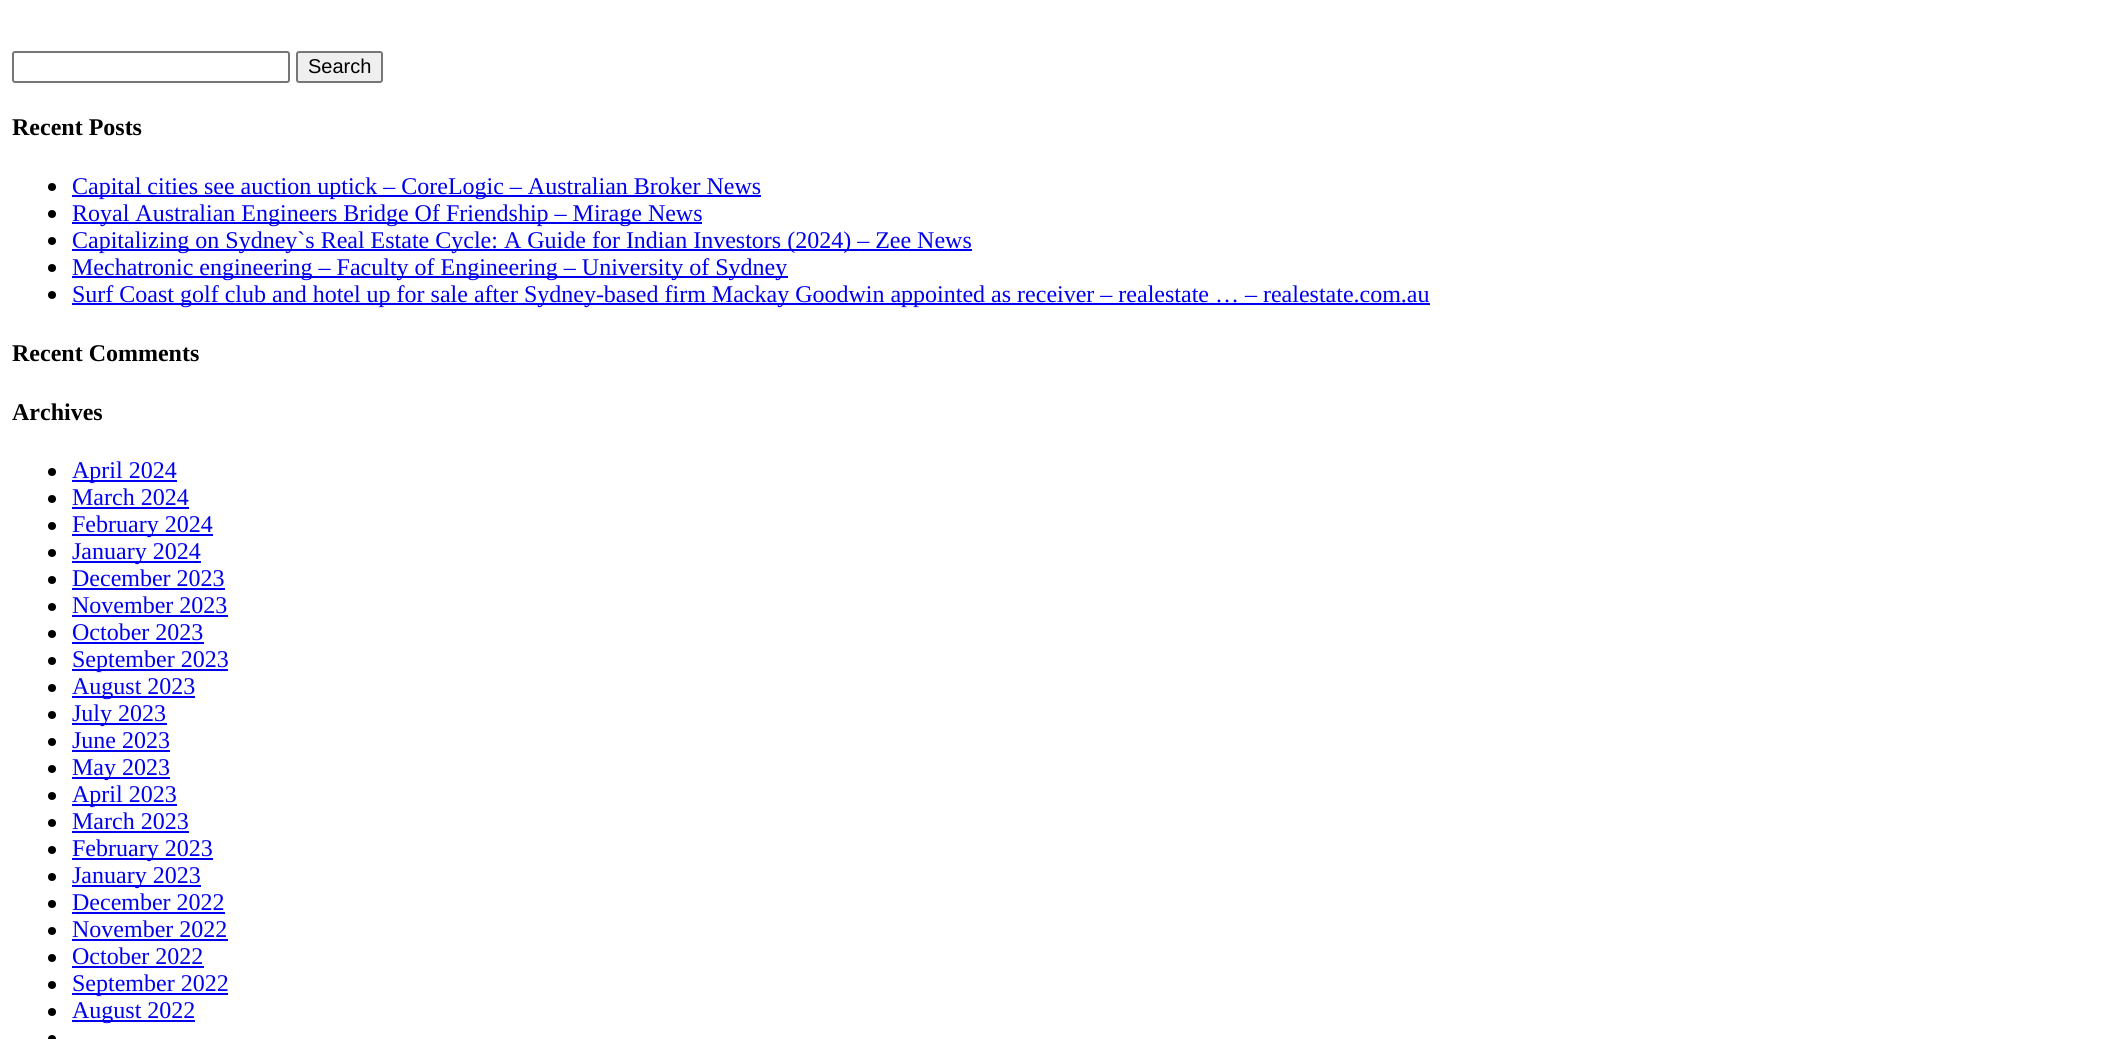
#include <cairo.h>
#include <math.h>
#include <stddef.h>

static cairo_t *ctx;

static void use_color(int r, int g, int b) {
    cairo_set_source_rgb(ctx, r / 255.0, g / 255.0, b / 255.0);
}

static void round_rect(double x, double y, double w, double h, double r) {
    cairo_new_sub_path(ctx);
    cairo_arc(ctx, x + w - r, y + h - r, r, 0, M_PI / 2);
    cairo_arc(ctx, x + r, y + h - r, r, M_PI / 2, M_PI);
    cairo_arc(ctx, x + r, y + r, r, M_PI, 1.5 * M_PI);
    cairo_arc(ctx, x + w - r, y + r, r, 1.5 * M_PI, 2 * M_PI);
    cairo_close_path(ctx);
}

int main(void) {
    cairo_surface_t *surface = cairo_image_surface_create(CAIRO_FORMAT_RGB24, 2112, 1039);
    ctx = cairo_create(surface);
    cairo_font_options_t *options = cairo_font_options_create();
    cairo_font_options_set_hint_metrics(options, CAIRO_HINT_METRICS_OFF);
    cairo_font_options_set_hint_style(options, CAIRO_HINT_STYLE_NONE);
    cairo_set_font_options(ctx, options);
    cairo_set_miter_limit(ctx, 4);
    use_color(255, 255, 255);
    cairo_paint(ctx);
    round_rect(13, 52, 276, 30, 2);
    use_color(118, 118, 118);
    cairo_stroke(ctx);
    use_color(239, 239, 239);
    round_rect(297, 52, 85, 30, 2);
    cairo_fill_preserve(ctx);
    use_color(118, 118, 118);
    cairo_stroke(ctx);
    cairo_select_font_face(ctx, "Liberation Sans", CAIRO_FONT_SLANT_NORMAL, CAIRO_FONT_WEIGHT_NORMAL);
    cairo_set_font_size(ctx, 20);
    use_color(0, 0, 0);
    cairo_move_to(ctx, 308, 73);
    cairo_show_text(ctx, "Search");
    cairo_select_font_face(ctx, "Liberation Serif", CAIRO_FONT_SLANT_NORMAL, CAIRO_FONT_WEIGHT_BOLD);
    cairo_set_font_size(ctx, 24);
    cairo_move_to(ctx, 12, 135);
    cairo_show_text(ctx, "Recent Posts");
    cairo_new_path(ctx);
    cairo_arc(ctx, 52, 187, 4, 0, 2 * M_PI);
    cairo_fill(ctx);
    use_color(0, 0, 238);
    cairo_rectangle(ctx, 72, 195, 689, 2);
    cairo_fill(ctx);
    cairo_select_font_face(ctx, "Liberation Serif", CAIRO_FONT_SLANT_NORMAL, CAIRO_FONT_WEIGHT_NORMAL);
    cairo_move_to(ctx, 72, 194);
    cairo_show_text(ctx, "Capital cities see auction uptick – CoreLogic – Australian Broker News");
    use_color(0, 0, 0);
    cairo_new_path(ctx);
    cairo_arc(ctx, 52, 214, 4, 0, 2 * M_PI);
    cairo_fill(ctx);
    use_color(0, 0, 238);
    cairo_rectangle(ctx, 72, 222, 630, 2);
    cairo_fill(ctx);
    cairo_move_to(ctx, 72, 221);
    cairo_show_text(ctx, "Royal Australian Engineers Bridge Of Friendship – Mirage News");
    use_color(0, 0, 0);
    cairo_new_path(ctx);
    cairo_arc(ctx, 52, 241, 4, 0, 2 * M_PI);
    cairo_fill(ctx);
    use_color(0, 0, 238);
    cairo_rectangle(ctx, 72, 249, 900, 2);
    cairo_fill(ctx);
    cairo_move_to(ctx, 72, 248);
    cairo_show_text(ctx, "Capitalizing on Sydney`s Real Estate Cycle: A Guide for Indian Investors (2024) – Zee News");
    use_color(0, 0, 0);
    cairo_new_path(ctx);
    cairo_arc(ctx, 52, 268, 4, 0, 2 * M_PI);
    cairo_fill(ctx);
    use_color(0, 0, 238);
    cairo_rectangle(ctx, 72, 276, 716, 2);
    cairo_fill(ctx);
    cairo_move_to(ctx, 72, 275);
    cairo_show_text(ctx, "Mechatronic engineering – Faculty of Engineering – University of Sydney");
    use_color(0, 0, 0);
    cairo_new_path(ctx);
    cairo_arc(ctx, 52, 295, 4, 0, 2 * M_PI);
    cairo_fill(ctx);
    use_color(0, 0, 238);
    cairo_rectangle(ctx, 72, 303, 1358, 2);
    cairo_fill(ctx);
    cairo_move_to(ctx, 72, 302);
    cairo_show_text(ctx, "Surf Coast golf club and hotel up for sale after Sydney-based firm Mackay Goodwin appointed as receiver – realestate … – realestate.com.au");
    cairo_select_font_face(ctx, "Liberation Serif", CAIRO_FONT_SLANT_NORMAL, CAIRO_FONT_WEIGHT_BOLD);
    use_color(0, 0, 0);
    cairo_move_to(ctx, 12, 361);
    cairo_show_text(ctx, "Recent Comments");
    cairo_move_to(ctx, 12, 420);
    cairo_show_text(ctx, "Archives");
    cairo_new_path(ctx);
    cairo_arc(ctx, 52, 472, 4, 0, 2 * M_PI);
    cairo_fill(ctx);
    use_color(0, 0, 238);
    cairo_rectangle(ctx, 72, 480, 105, 2);
    cairo_fill(ctx);
    cairo_select_font_face(ctx, "Liberation Serif", CAIRO_FONT_SLANT_NORMAL, CAIRO_FONT_WEIGHT_NORMAL);
    cairo_move_to(ctx, 72, 478);
    cairo_show_text(ctx, "April 2024");
    use_color(0, 0, 0);
    cairo_new_path(ctx);
    cairo_arc(ctx, 52, 499, 4, 0, 2 * M_PI);
    cairo_fill(ctx);
    use_color(0, 0, 238);
    cairo_move_to(ctx, 72, 505);
    cairo_show_text(ctx, "March 2024");
    cairo_rectangle(ctx, 72, 507, 117, 2);
    cairo_fill(ctx);
    use_color(0, 0, 0);
    cairo_arc(ctx, 52, 526, 4, 0, 2 * M_PI);
    cairo_fill(ctx);
    use_color(0, 0, 238);
    cairo_rectangle(ctx, 72, 534, 141, 2);
    cairo_fill(ctx);
    cairo_move_to(ctx, 72, 532);
    cairo_show_text(ctx, "February 2024");
    use_color(0, 0, 0);
    cairo_new_path(ctx);
    cairo_arc(ctx, 52, 553, 4, 0, 2 * M_PI);
    cairo_fill(ctx);
    use_color(0, 0, 238);
    cairo_rectangle(ctx, 72, 561, 129, 2);
    cairo_fill(ctx);
    cairo_move_to(ctx, 72, 559);
    cairo_show_text(ctx, "January 2024");
    use_color(0, 0, 0);
    cairo_new_path(ctx);
    cairo_arc(ctx, 52, 580, 4, 0, 2 * M_PI);
    cairo_fill(ctx);
    use_color(0, 0, 238);
    cairo_move_to(ctx, 72, 586);
    cairo_show_text(ctx, "December 2023");
    cairo_rectangle(ctx, 72, 588, 153, 2);
    cairo_fill(ctx);
    use_color(0, 0, 0);
    cairo_arc(ctx, 52, 607, 4, 0, 2 * M_PI);
    cairo_fill(ctx);
    use_color(0, 0, 238);
    cairo_move_to(ctx, 72, 613);
    cairo_show_text(ctx, "November 2023");
    cairo_rectangle(ctx, 72, 615, 156, 2);
    cairo_fill(ctx);
    use_color(0, 0, 0);
    cairo_arc(ctx, 52, 634, 4, 0, 2 * M_PI);
    cairo_fill(ctx);
    use_color(0, 0, 238);
    cairo_move_to(ctx, 72, 640);
    cairo_show_text(ctx, "October 2023");
    cairo_rectangle(ctx, 72, 642, 132, 2);
    cairo_fill(ctx);
    use_color(0, 0, 0);
    cairo_arc(ctx, 52, 661, 4, 0, 2 * M_PI);
    cairo_fill(ctx);
    use_color(0, 0, 238);
    cairo_rectangle(ctx, 72, 669, 156, 2);
    cairo_fill(ctx);
    cairo_move_to(ctx, 72, 667);
    cairo_show_text(ctx, "September 2023");
    use_color(0, 0, 0);
    cairo_new_path(ctx);
    cairo_arc(ctx, 52, 688, 4, 0, 2 * M_PI);
    cairo_fill(ctx);
    use_color(0, 0, 238);
    cairo_rectangle(ctx, 72, 696, 123, 2);
    cairo_fill(ctx);
    cairo_move_to(ctx, 72, 694);
    cairo_show_text(ctx, "August 2023");
    use_color(0, 0, 0);
    cairo_new_path(ctx);
    cairo_arc(ctx, 52, 715, 4, 0, 2 * M_PI);
    cairo_fill(ctx);
    use_color(0, 0, 238);
    cairo_rectangle(ctx, 72, 723, 95, 2);
    cairo_fill(ctx);
    cairo_move_to(ctx, 72, 721);
    cairo_show_text(ctx, "July 2023");
    use_color(0, 0, 0);
    cairo_new_path(ctx);
    cairo_arc(ctx, 52, 742, 4, 0, 2 * M_PI);
    cairo_fill(ctx);
    use_color(0, 0, 238);
    cairo_move_to(ctx, 72, 748);
    cairo_show_text(ctx, "June 2023");
    cairo_rectangle(ctx, 72, 750, 98, 2);
    cairo_fill(ctx);
    use_color(0, 0, 0);
    cairo_arc(ctx, 52, 769, 4, 0, 2 * M_PI);
    cairo_fill(ctx);
    use_color(0, 0, 238);
    cairo_rectangle(ctx, 72, 777, 98, 2);
    cairo_fill(ctx);
    cairo_move_to(ctx, 72, 775);
    cairo_show_text(ctx, "May 2023");
    use_color(0, 0, 0);
    cairo_new_path(ctx);
    cairo_arc(ctx, 52, 796, 4, 0, 2 * M_PI);
    cairo_fill(ctx);
    use_color(0, 0, 238);
    cairo_rectangle(ctx, 72, 804, 105, 2);
    cairo_fill(ctx);
    cairo_move_to(ctx, 72, 802);
    cairo_show_text(ctx, "April 2023");
    use_color(0, 0, 0);
    cairo_new_path(ctx);
    cairo_arc(ctx, 52, 823, 4, 0, 2 * M_PI);
    cairo_fill(ctx);
    use_color(0, 0, 238);
    cairo_move_to(ctx, 72, 829);
    cairo_show_text(ctx, "March 2023");
    cairo_rectangle(ctx, 72, 831, 117, 2);
    cairo_fill(ctx);
    use_color(0, 0, 0);
    cairo_arc(ctx, 52, 850, 4, 0, 2 * M_PI);
    cairo_fill(ctx);
    use_color(0, 0, 238);
    cairo_rectangle(ctx, 72, 858, 141, 2);
    cairo_fill(ctx);
    cairo_move_to(ctx, 72, 856);
    cairo_show_text(ctx, "February 2023");
    use_color(0, 0, 0);
    cairo_new_path(ctx);
    cairo_arc(ctx, 52, 877, 4, 0, 2 * M_PI);
    cairo_fill(ctx);
    use_color(0, 0, 238);
    cairo_rectangle(ctx, 72, 885, 129, 2);
    cairo_fill(ctx);
    cairo_move_to(ctx, 72, 883);
    cairo_show_text(ctx, "January 2023");
    use_color(0, 0, 0);
    cairo_new_path(ctx);
    cairo_arc(ctx, 52, 904, 4, 0, 2 * M_PI);
    cairo_fill(ctx);
    use_color(0, 0, 238);
    cairo_move_to(ctx, 72, 910);
    cairo_show_text(ctx, "December 2022");
    cairo_rectangle(ctx, 72, 912, 153, 2);
    cairo_fill(ctx);
    use_color(0, 0, 0);
    cairo_arc(ctx, 52, 931, 4, 0, 2 * M_PI);
    cairo_fill(ctx);
    use_color(0, 0, 238);
    cairo_move_to(ctx, 72, 937);
    cairo_show_text(ctx, "November 2022");
    cairo_rectangle(ctx, 72, 939, 156, 2);
    cairo_fill(ctx);
    use_color(0, 0, 0);
    cairo_arc(ctx, 52, 958, 4, 0, 2 * M_PI);
    cairo_fill(ctx);
    use_color(0, 0, 238);
    cairo_move_to(ctx, 72, 964);
    cairo_show_text(ctx, "October 2022");
    cairo_rectangle(ctx, 72, 966, 132, 2);
    cairo_fill(ctx);
    use_color(0, 0, 0);
    cairo_arc(ctx, 52, 985, 4, 0, 2 * M_PI);
    cairo_fill(ctx);
    use_color(0, 0, 238);
    cairo_rectangle(ctx, 72, 993, 156, 2);
    cairo_fill(ctx);
    cairo_move_to(ctx, 72, 991);
    cairo_show_text(ctx, "September 2022");
    use_color(0, 0, 0);
    cairo_new_path(ctx);
    cairo_arc(ctx, 52, 1012, 4, 0, 2 * M_PI);
    cairo_fill(ctx);
    use_color(0, 0, 238);
    cairo_rectangle(ctx, 72, 1020, 123, 2);
    cairo_fill(ctx);
    cairo_move_to(ctx, 72, 1018);
    cairo_show_text(ctx, "August 2022");
    use_color(0, 0, 0);
    cairo_new_path(ctx);
    cairo_arc(ctx, 52, 1039, 4, 0, 2 * M_PI);
    cairo_fill(ctx);
    cairo_surface_write_to_png(surface, "result.png");
    cairo_font_options_destroy(options);
    cairo_destroy(ctx);
    cairo_surface_destroy(surface);
    return 0;
}
